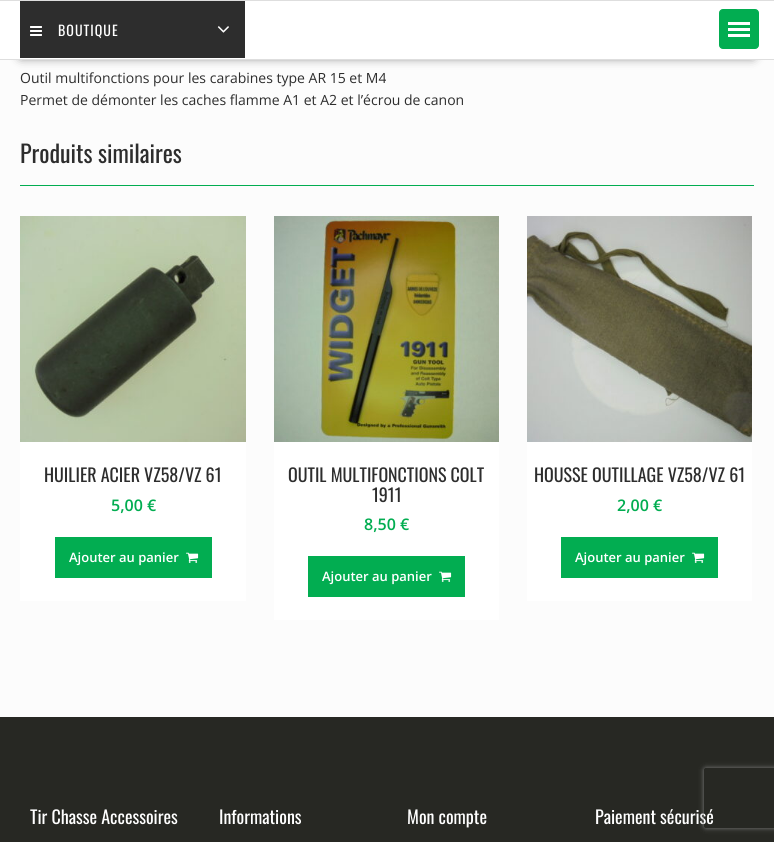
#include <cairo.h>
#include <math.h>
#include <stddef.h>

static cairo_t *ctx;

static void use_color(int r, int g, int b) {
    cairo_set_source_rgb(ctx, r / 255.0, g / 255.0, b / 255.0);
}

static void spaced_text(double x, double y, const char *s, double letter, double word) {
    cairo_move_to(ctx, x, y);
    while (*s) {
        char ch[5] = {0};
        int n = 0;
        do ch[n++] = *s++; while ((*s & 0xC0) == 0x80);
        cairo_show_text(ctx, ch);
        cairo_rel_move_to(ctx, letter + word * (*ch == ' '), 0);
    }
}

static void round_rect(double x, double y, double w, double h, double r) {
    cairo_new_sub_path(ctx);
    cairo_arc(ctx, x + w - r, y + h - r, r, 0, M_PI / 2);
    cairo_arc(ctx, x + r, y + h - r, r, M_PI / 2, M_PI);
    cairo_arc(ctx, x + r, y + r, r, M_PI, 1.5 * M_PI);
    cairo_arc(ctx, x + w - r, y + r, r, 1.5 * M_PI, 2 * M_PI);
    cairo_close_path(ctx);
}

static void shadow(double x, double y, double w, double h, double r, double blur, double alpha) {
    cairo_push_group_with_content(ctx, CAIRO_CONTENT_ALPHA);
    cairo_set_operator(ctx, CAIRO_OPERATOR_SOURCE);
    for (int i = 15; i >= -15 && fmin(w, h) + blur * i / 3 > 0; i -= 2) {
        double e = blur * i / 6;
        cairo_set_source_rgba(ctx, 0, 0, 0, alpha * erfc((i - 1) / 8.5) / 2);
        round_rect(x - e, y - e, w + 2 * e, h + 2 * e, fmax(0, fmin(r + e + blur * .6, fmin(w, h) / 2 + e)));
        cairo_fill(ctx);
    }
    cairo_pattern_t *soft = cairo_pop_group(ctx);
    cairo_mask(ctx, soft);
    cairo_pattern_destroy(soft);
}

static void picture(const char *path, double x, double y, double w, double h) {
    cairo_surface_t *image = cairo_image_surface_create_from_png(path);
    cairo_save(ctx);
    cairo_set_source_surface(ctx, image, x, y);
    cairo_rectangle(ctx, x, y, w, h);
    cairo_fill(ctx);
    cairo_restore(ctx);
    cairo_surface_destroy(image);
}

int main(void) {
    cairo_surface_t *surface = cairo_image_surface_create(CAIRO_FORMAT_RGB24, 774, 842);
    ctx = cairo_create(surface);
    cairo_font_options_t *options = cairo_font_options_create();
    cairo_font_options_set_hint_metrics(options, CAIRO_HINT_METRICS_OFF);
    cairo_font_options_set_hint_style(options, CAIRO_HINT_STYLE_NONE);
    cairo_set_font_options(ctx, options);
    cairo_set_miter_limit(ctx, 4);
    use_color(252, 252, 252);
    cairo_paint(ctx);
    use_color(0, 0, 0);
    shadow(21, 38, 732, 18, 0, 5.5, 0.75);
    use_color(255, 255, 255);
    cairo_rectangle(ctx, 0, 1, 774, 58);
    cairo_fill(ctx);
    use_color(222, 222, 222);
    cairo_rectangle(ctx, 0, 0, 774, 1);
    cairo_fill(ctx);
    cairo_rectangle(ctx, 0, 59, 774, 1);
    cairo_fill(ctx);
    use_color(45, 45, 45);
    cairo_rectangle(ctx, 20, 1, 225, 57);
    cairo_fill(ctx);
    picture("img1.png", 30, 26, 12, 10);
    cairo_select_font_face(ctx, "Oswald", CAIRO_FONT_SLANT_NORMAL, CAIRO_FONT_WEIGHT_NORMAL);
    cairo_set_font_size(ctx, 14);
    use_color(255, 255, 255);
    spaced_text(58, 36, "BOUTIQUE", 1, 0);
    picture("img2.png", 217, 26, 12, 7);
    use_color(2, 173, 81);
    round_rect(719.5, 9.5, 39, 39, 3.5);
    cairo_fill_preserve(ctx);
    cairo_set_line_width(ctx, 1);
    cairo_stroke(ctx);
    use_color(255, 255, 255);
    cairo_rectangle(ctx, 728, 34, 22, 3);
    cairo_fill(ctx);
    cairo_rectangle(ctx, 728, 28, 22, 3);
    cairo_fill(ctx);
    cairo_rectangle(ctx, 728, 22, 22, 3);
    cairo_fill(ctx);
    cairo_select_font_face(ctx, "Open Sans", CAIRO_FONT_SLANT_NORMAL, CAIRO_FONT_WEIGHT_NORMAL);
    use_color(45, 45, 45);
    cairo_move_to(ctx, 20, 83);
    cairo_show_text(ctx, "Outil multifonctions pour les carabines type AR 15 et M4");
    cairo_move_to(ctx, 20, 105);
    cairo_show_text(ctx, "Permet de démonter les caches flamme A1 et A2 et l’écrou de canon");
    use_color(2, 173, 81);
    cairo_rectangle(ctx, 20, 185, 734, 1);
    cairo_fill(ctx);
    cairo_select_font_face(ctx, "Oswald", CAIRO_FONT_SLANT_NORMAL, CAIRO_FONT_WEIGHT_NORMAL);
    cairo_set_font_size(ctx, 24);
    use_color(45, 45, 45);
    cairo_move_to(ctx, 20, 163);
    cairo_show_text(ctx, "Produits similaires");
    use_color(255, 255, 255);
    cairo_rectangle(ctx, 20, 442, 226, 159);
    cairo_fill(ctx);
    picture("img3.png", 20, 216, 226, 226);
    cairo_set_font_size(ctx, 18);
    use_color(45, 45, 45);
    cairo_move_to(ctx, 44, 482);
    cairo_show_text(ctx, "HUILIER ACIER VZ58/VZ 61");
    cairo_select_font_face(ctx, "Open Sans SemiBold", CAIRO_FONT_SLANT_NORMAL, CAIRO_FONT_WEIGHT_NORMAL);
    cairo_set_font_size(ctx, 16);
    use_color(2, 173, 81);
    cairo_move_to(ctx, 111, 511);
    cairo_show_text(ctx, "5,00 €");
    cairo_rectangle(ctx, 55, 537, 157, 41);
    cairo_fill(ctx);
    cairo_set_font_size(ctx, 13);
    use_color(255, 255, 255);
    cairo_move_to(ctx, 69, 562);
    cairo_show_text(ctx, "Ajouter au panier");
    picture("img4.png", 186, 552, 13, 11);
    cairo_rectangle(ctx, 274, 442, 225, 178);
    cairo_fill(ctx);
    picture("img5.png", 274, 216, 225, 226);
    cairo_select_font_face(ctx, "Oswald", CAIRO_FONT_SLANT_NORMAL, CAIRO_FONT_WEIGHT_NORMAL);
    cairo_set_font_size(ctx, 18);
    use_color(45, 45, 45);
    cairo_move_to(ctx, 288, 482);
    cairo_show_text(ctx, "OUTIL MULTIFONCTIONS COLT");
    cairo_move_to(ctx, 372, 502);
    cairo_show_text(ctx, "1911");
    cairo_select_font_face(ctx, "Open Sans SemiBold", CAIRO_FONT_SLANT_NORMAL, CAIRO_FONT_WEIGHT_NORMAL);
    cairo_set_font_size(ctx, 16);
    use_color(2, 173, 81);
    cairo_move_to(ctx, 364, 530);
    cairo_show_text(ctx, "8,50 €");
    cairo_rectangle(ctx, 308, 556, 157, 41);
    cairo_fill(ctx);
    cairo_set_font_size(ctx, 13);
    use_color(255, 255, 255);
    cairo_move_to(ctx, 322, 581);
    cairo_show_text(ctx, "Ajouter au panier");
    picture("img4.png", 439, 571, 13, 11);
    cairo_rectangle(ctx, 527, 442, 225, 159);
    cairo_fill(ctx);
    picture("img6.png", 527, 216, 225, 226);
    cairo_select_font_face(ctx, "Oswald", CAIRO_FONT_SLANT_NORMAL, CAIRO_FONT_WEIGHT_NORMAL);
    cairo_set_font_size(ctx, 18);
    use_color(45, 45, 45);
    cairo_move_to(ctx, 534, 482);
    cairo_show_text(ctx, "HOUSSE OUTILLAGE VZ58/VZ 61");
    cairo_select_font_face(ctx, "Open Sans SemiBold", CAIRO_FONT_SLANT_NORMAL, CAIRO_FONT_WEIGHT_NORMAL);
    cairo_set_font_size(ctx, 16);
    use_color(2, 173, 81);
    cairo_move_to(ctx, 617, 511);
    cairo_show_text(ctx, "2,00 €");
    cairo_rectangle(ctx, 561, 537, 157, 41);
    cairo_fill(ctx);
    cairo_set_font_size(ctx, 13);
    use_color(255, 255, 255);
    cairo_move_to(ctx, 575, 562);
    cairo_show_text(ctx, "Ajouter au panier");
    picture("img4.png", 692, 552, 13, 11);
    use_color(39, 40, 35);
    cairo_rectangle(ctx, 0, 717, 774, 125);
    cairo_fill(ctx);
    cairo_select_font_face(ctx, "Oswald", CAIRO_FONT_SLANT_NORMAL, CAIRO_FONT_WEIGHT_NORMAL);
    cairo_set_font_size(ctx, 18);
    use_color(255, 255, 255);
    cairo_move_to(ctx, 30, 824);
    cairo_show_text(ctx, "Tir Chasse Accessoires");
    cairo_move_to(ctx, 219, 824);
    cairo_show_text(ctx, "Informations");
    cairo_move_to(ctx, 407, 824);
    cairo_show_text(ctx, "Mon compte");
    cairo_move_to(ctx, 595, 824);
    cairo_show_text(ctx, "Paiement sécurisé");
    cairo_save(ctx);
    cairo_set_fill_rule(ctx, CAIRO_FILL_RULE_EVEN_ODD);
    cairo_new_path(ctx);
    cairo_move_to(ctx, 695, 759);
    cairo_line_to(ctx, 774, 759);
    cairo_line_to(ctx, 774, 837);
    cairo_line_to(ctx, 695, 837);
    cairo_close_path(ctx);
    cairo_move_to(ctx, 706, 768);
    cairo_line_to(ctx, 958, 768);
    cairo_curve_to(ctx, 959, 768, 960, 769, 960, 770);
    cairo_line_to(ctx, 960, 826);
    cairo_curve_to(ctx, 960, 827, 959, 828, 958, 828);
    cairo_line_to(ctx, 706, 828);
    cairo_curve_to(ctx, 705, 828, 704, 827, 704, 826);
    cairo_line_to(ctx, 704, 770);
    cairo_curve_to(ctx, 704, 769, 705, 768, 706, 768);
    cairo_close_path(ctx);
    cairo_clip(ctx);
    use_color(128, 128, 128);
    shadow(704, 768, 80, 60, 2, 2.5, 1);
    cairo_restore(ctx);
    cairo_surface_write_to_png(surface, "result.png");
    cairo_font_options_destroy(options);
    cairo_destroy(ctx);
    cairo_surface_destroy(surface);
    return 0;
}
